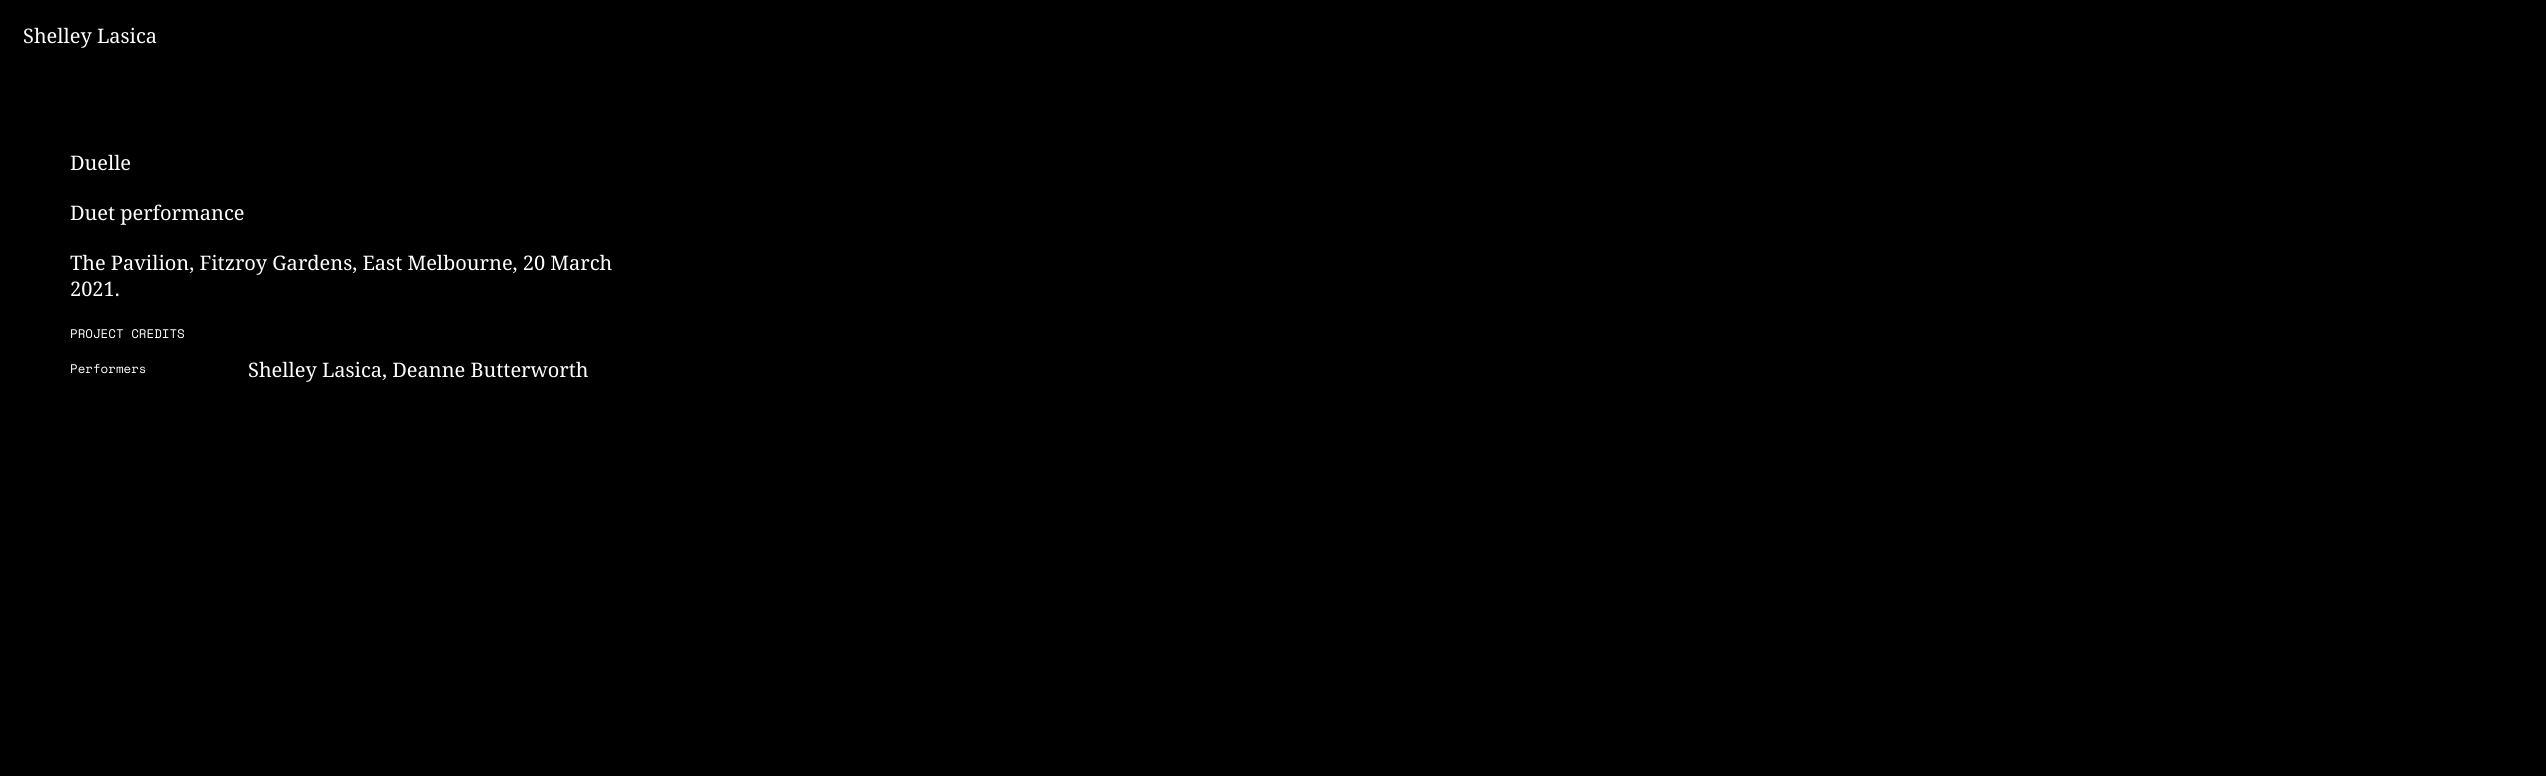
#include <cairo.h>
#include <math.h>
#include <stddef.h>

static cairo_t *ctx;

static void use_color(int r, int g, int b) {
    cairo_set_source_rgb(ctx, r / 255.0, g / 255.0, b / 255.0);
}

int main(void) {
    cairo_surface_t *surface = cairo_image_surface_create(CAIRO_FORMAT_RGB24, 2546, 776);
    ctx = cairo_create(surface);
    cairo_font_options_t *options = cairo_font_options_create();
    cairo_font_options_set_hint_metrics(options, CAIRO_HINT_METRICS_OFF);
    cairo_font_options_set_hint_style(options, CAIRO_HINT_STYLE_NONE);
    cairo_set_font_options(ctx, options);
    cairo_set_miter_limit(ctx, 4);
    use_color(0, 0, 0);
    cairo_paint(ctx);
    cairo_select_font_face(ctx, "Noto Serif", CAIRO_FONT_SLANT_NORMAL, CAIRO_FONT_WEIGHT_NORMAL);
    cairo_set_font_size(ctx, 20);
    use_color(255, 255, 255);
    cairo_move_to(ctx, 23, 43);
    cairo_show_text(ctx, "Shelley Lasica");
    cairo_move_to(ctx, 70, 170);
    cairo_show_text(ctx, "Duelle");
    cairo_move_to(ctx, 70, 220);
    cairo_show_text(ctx, "Duet performance");
    cairo_move_to(ctx, 70, 270);
    cairo_show_text(ctx, "The Pavilion, Fitzroy Gardens, East Melbourne, 20 March");
    cairo_move_to(ctx, 70, 296);
    cairo_show_text(ctx, "2021.");
    cairo_select_font_face(ctx, "Space Mono", CAIRO_FONT_SLANT_NORMAL, CAIRO_FONT_WEIGHT_NORMAL);
    cairo_set_font_size(ctx, 12.5);
    cairo_move_to(ctx, 70, 338);
    cairo_show_text(ctx, "PROJECT CREDITS");
    cairo_move_to(ctx, 70, 373);
    cairo_show_text(ctx, "Performers");
    cairo_select_font_face(ctx, "Noto Serif", CAIRO_FONT_SLANT_NORMAL, CAIRO_FONT_WEIGHT_NORMAL);
    cairo_set_font_size(ctx, 20);
    cairo_move_to(ctx, 248, 377);
    cairo_show_text(ctx, "Shelley Lasica, Deanne Butterworth");
    cairo_surface_write_to_png(surface, "result.png");
    cairo_font_options_destroy(options);
    cairo_destroy(ctx);
    cairo_surface_destroy(surface);
    return 0;
}
